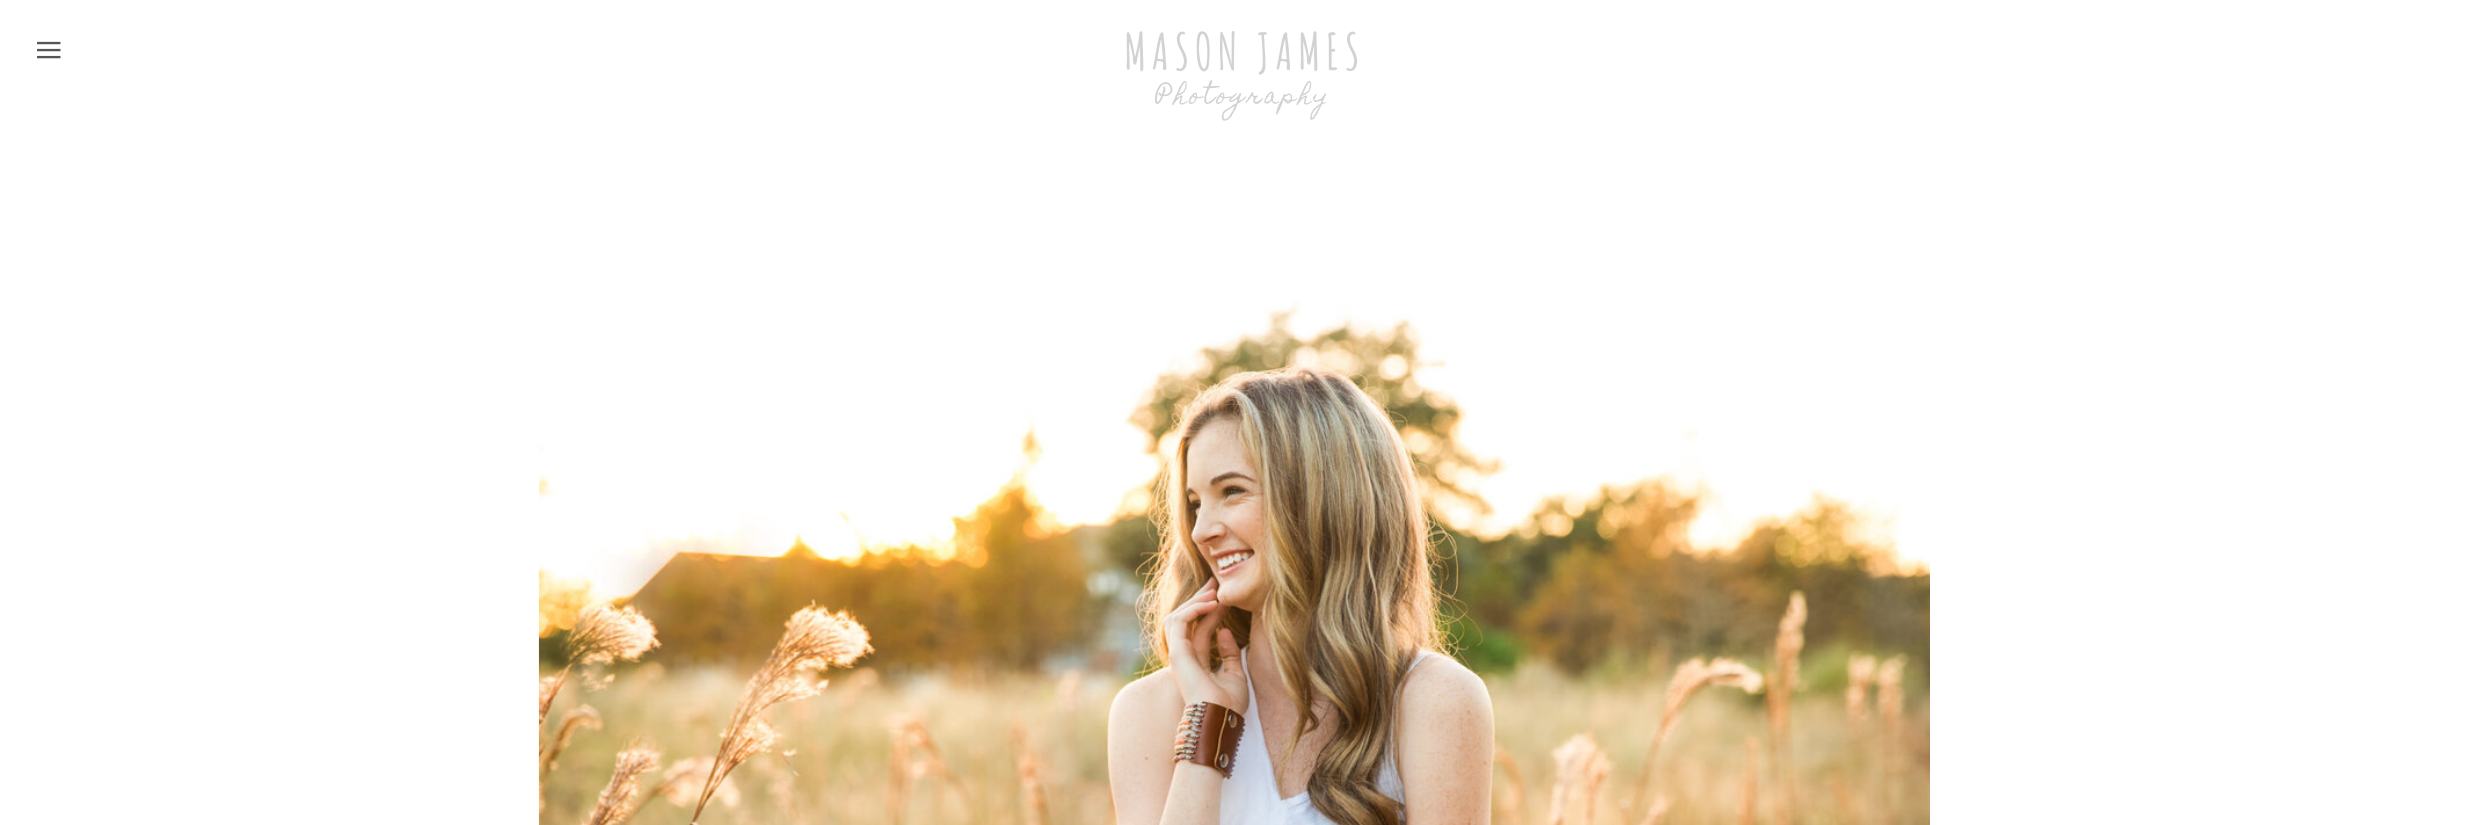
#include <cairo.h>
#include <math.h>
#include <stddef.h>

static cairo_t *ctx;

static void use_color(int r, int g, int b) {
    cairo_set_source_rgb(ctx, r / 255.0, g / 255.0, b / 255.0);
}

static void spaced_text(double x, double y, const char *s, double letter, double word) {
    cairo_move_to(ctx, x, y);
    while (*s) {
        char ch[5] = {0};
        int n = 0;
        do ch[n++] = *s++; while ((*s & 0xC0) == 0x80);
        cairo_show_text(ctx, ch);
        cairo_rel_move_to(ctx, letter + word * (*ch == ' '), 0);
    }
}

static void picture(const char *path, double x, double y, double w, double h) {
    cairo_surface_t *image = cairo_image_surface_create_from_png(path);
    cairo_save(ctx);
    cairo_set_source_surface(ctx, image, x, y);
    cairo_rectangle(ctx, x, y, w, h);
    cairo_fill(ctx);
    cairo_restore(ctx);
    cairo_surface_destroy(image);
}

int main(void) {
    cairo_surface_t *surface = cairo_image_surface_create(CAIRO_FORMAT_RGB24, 2487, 825);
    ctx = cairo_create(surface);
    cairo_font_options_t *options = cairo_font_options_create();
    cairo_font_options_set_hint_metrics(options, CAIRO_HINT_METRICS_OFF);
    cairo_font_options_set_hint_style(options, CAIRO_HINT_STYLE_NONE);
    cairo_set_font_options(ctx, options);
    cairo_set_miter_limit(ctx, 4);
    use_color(255, 255, 255);
    cairo_paint(ctx);
    picture("img1.png", 37, 41, 24, 18);
    cairo_select_font_face(ctx, "Amatic SC", CAIRO_FONT_SLANT_NORMAL, CAIRO_FONT_WEIGHT_BOLD);
    cairo_set_font_size(ctx, 50);
    use_color(210, 210, 210);
    spaced_text(1124, 70, "MASON JAMES", 5, 0);
    cairo_select_font_face(ctx, "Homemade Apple", CAIRO_FONT_SLANT_NORMAL, CAIRO_FONT_WEIGHT_NORMAL);
    cairo_set_font_size(ctx, 22.5);
    spaced_text(1156, 103, "Photography", 2.25, 0);
    picture("img2.png", 538, 299, 1392, 526);
    cairo_surface_write_to_png(surface, "result.png");
    cairo_font_options_destroy(options);
    cairo_destroy(ctx);
    cairo_surface_destroy(surface);
    return 0;
}
